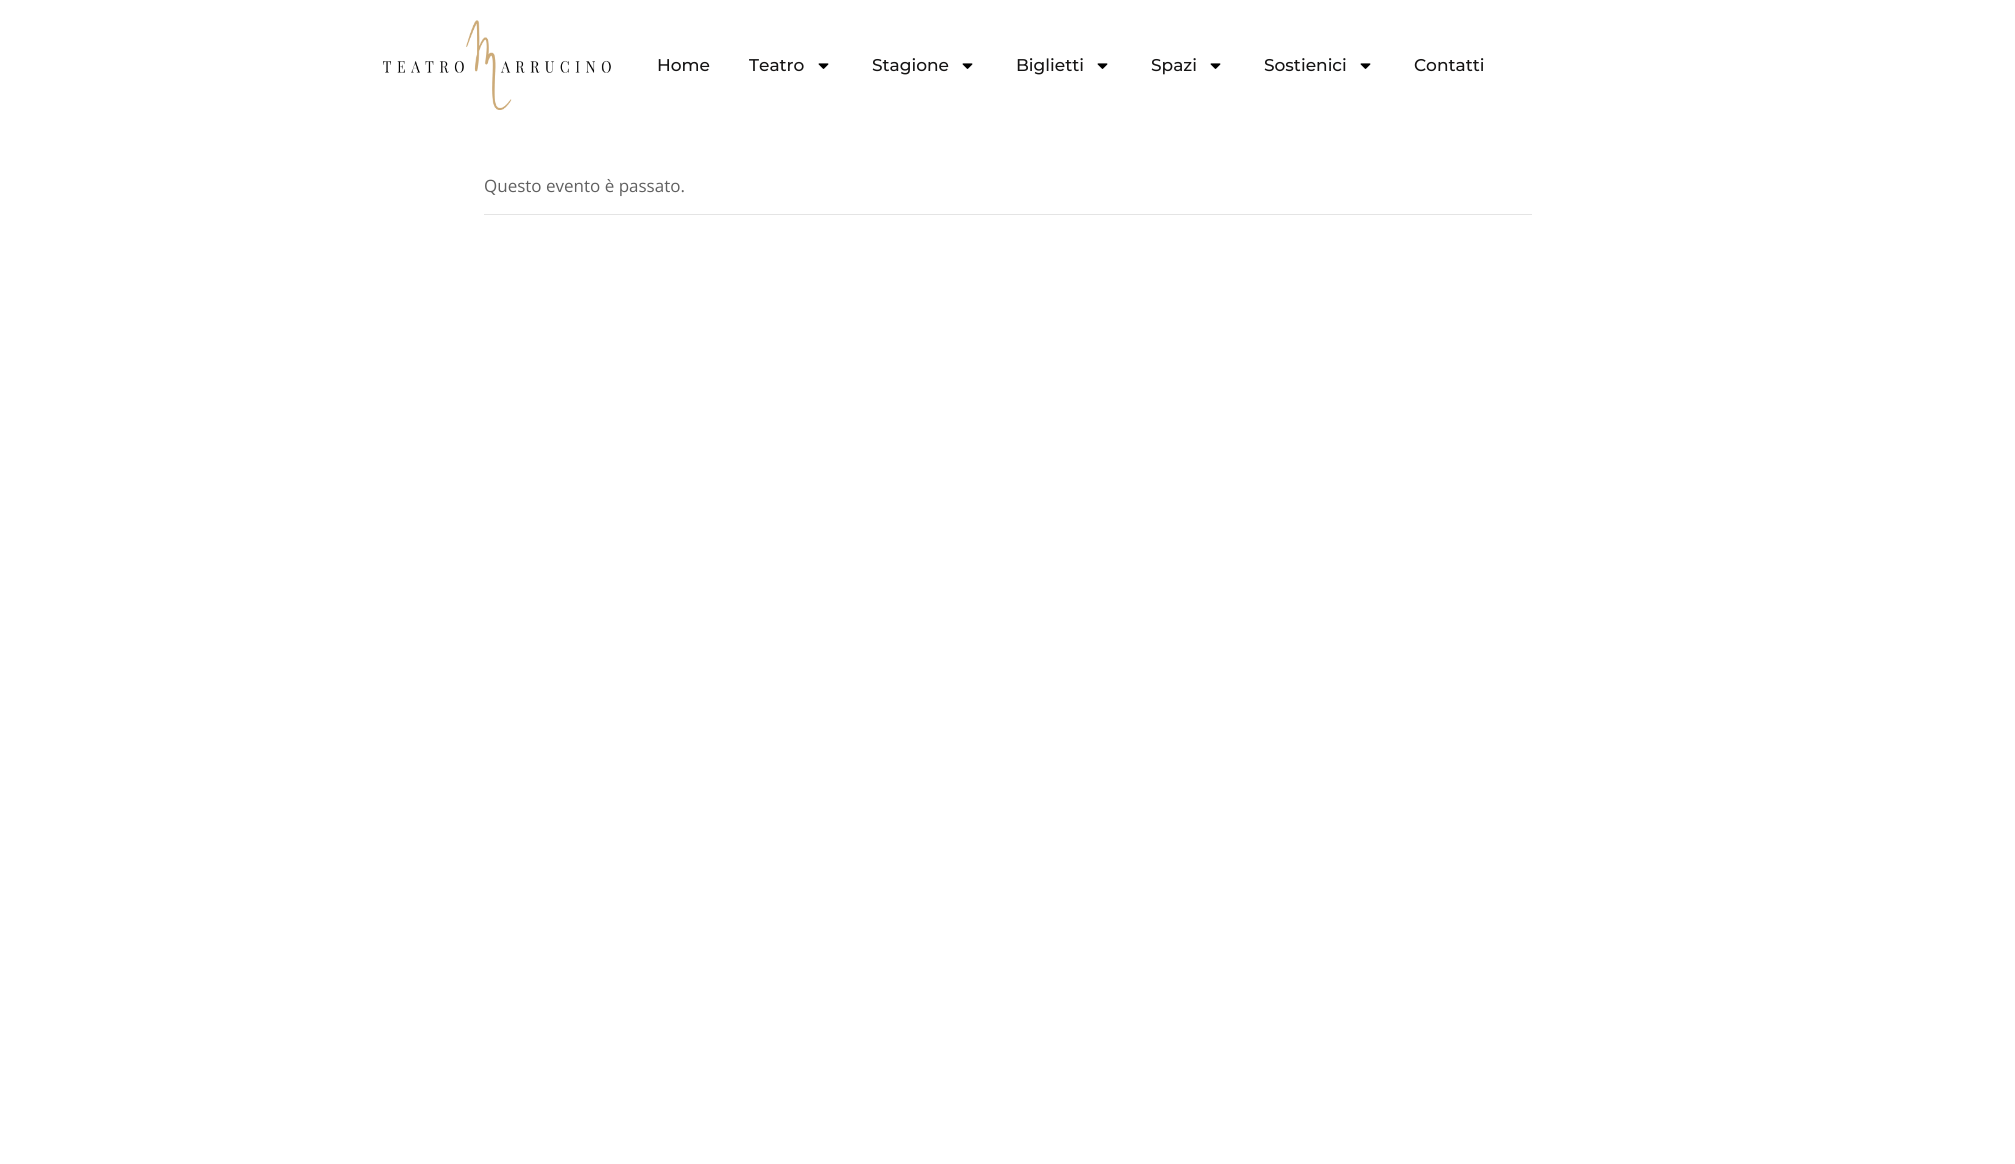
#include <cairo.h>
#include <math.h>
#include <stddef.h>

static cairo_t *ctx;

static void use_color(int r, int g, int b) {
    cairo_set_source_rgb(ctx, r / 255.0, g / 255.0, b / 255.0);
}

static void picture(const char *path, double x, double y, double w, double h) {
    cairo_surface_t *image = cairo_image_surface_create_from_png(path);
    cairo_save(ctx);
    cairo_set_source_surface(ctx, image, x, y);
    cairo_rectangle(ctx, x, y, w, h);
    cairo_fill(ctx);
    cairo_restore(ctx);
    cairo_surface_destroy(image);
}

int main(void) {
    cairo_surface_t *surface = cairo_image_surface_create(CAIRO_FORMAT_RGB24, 2015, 1164);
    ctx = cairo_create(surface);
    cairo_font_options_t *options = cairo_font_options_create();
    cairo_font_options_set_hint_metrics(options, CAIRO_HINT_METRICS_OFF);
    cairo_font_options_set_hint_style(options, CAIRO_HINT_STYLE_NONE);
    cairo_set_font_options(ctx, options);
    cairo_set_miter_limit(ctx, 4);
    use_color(255, 255, 255);
    cairo_paint(ctx);
    picture("img1.png", 383, 20, 228, 90);
    cairo_select_font_face(ctx, "Montserrat Medium", CAIRO_FONT_SLANT_NORMAL, CAIRO_FONT_WEIGHT_NORMAL);
    cairo_set_font_size(ctx, 17);
    use_color(21, 20, 20);
    cairo_move_to(ctx, 657, 71);
    cairo_show_text(ctx, "Home");
    cairo_move_to(ctx, 749, 71);
    cairo_show_text(ctx, "Teatro");
    picture("img2.png", 818, 63, 11, 6);
    cairo_move_to(ctx, 872, 71);
    cairo_show_text(ctx, "Stagione");
    picture("img2.png", 962, 63, 11, 6);
    cairo_move_to(ctx, 1016, 71);
    cairo_show_text(ctx, "Biglietti");
    picture("img2.png", 1097, 63, 11, 6);
    cairo_move_to(ctx, 1151, 71);
    cairo_show_text(ctx, "Spazi");
    picture("img2.png", 1210, 63, 11, 6);
    cairo_move_to(ctx, 1264, 71);
    cairo_show_text(ctx, "Sostienici");
    picture("img2.png", 1360, 63, 11, 6);
    cairo_move_to(ctx, 1414, 71);
    cairo_show_text(ctx, "Contatti");
    use_color(228, 228, 228);
    cairo_rectangle(ctx, 484, 214, 1048, 1);
    cairo_fill(ctx);
    cairo_select_font_face(ctx, "Open Sans", CAIRO_FONT_SLANT_NORMAL, CAIRO_FONT_WEIGHT_NORMAL);
    use_color(96, 96, 96);
    cairo_move_to(ctx, 484, 192);
    cairo_show_text(ctx, "Questo evento è passato.");
    cairo_surface_write_to_png(surface, "result.png");
    cairo_font_options_destroy(options);
    cairo_destroy(ctx);
    cairo_surface_destroy(surface);
    return 0;
}
